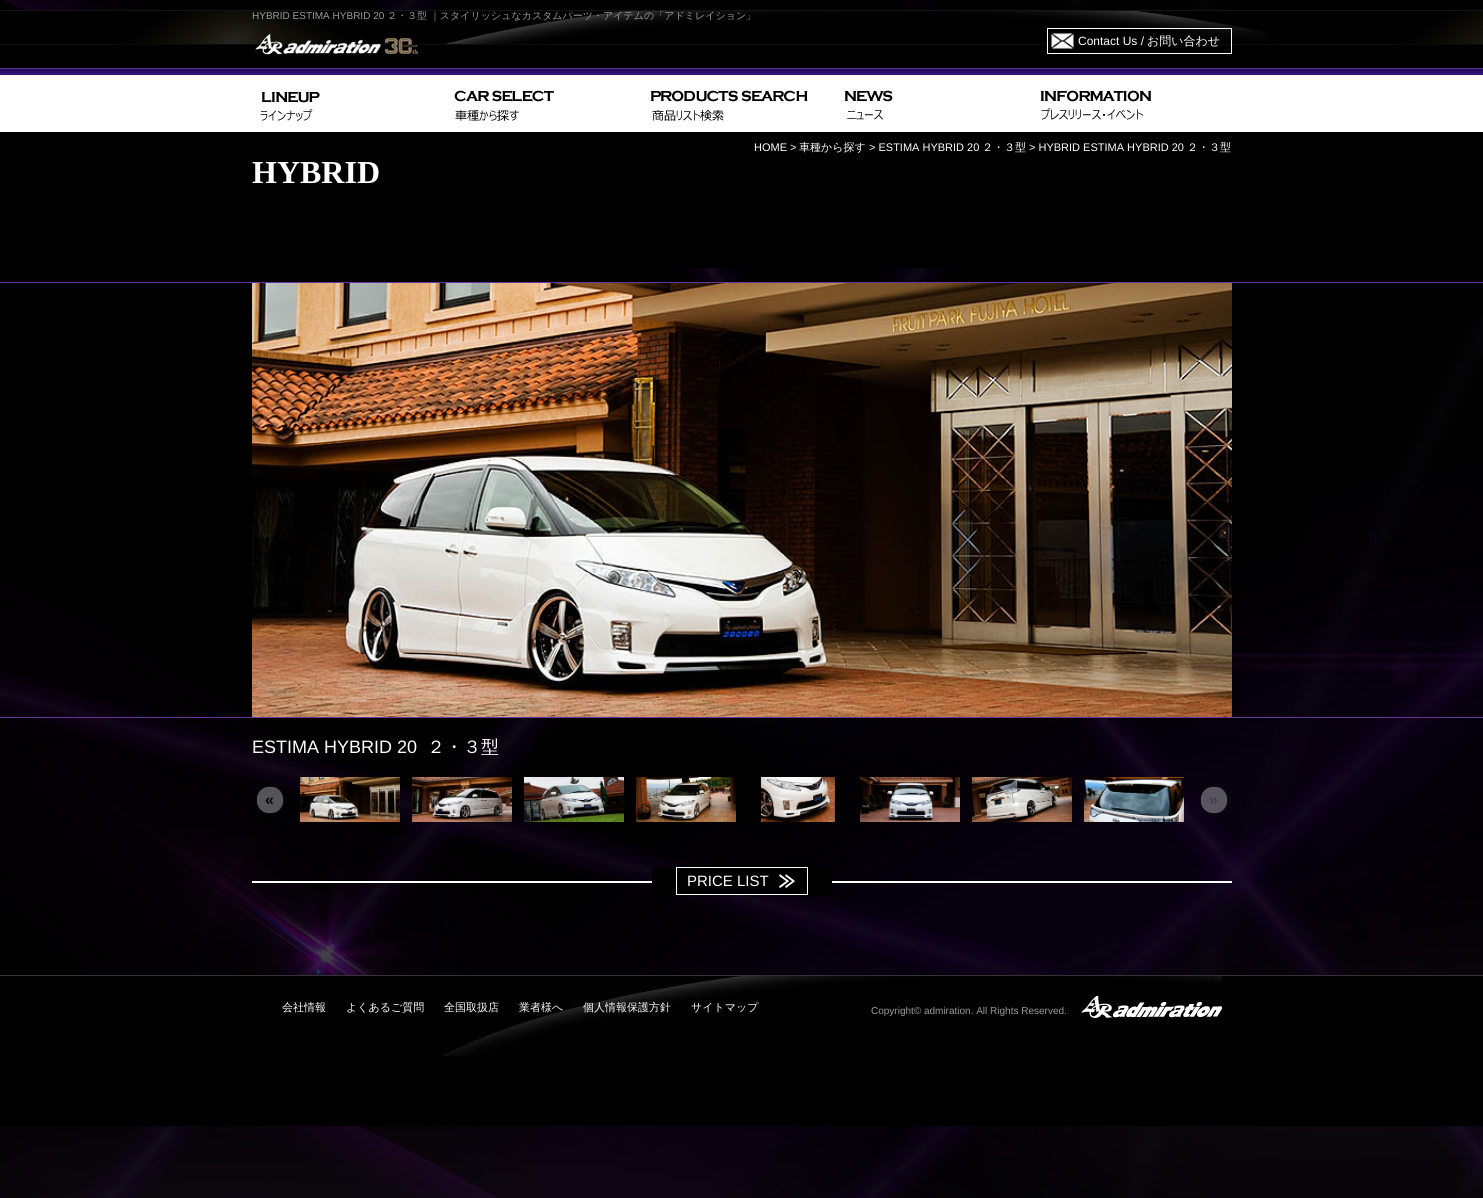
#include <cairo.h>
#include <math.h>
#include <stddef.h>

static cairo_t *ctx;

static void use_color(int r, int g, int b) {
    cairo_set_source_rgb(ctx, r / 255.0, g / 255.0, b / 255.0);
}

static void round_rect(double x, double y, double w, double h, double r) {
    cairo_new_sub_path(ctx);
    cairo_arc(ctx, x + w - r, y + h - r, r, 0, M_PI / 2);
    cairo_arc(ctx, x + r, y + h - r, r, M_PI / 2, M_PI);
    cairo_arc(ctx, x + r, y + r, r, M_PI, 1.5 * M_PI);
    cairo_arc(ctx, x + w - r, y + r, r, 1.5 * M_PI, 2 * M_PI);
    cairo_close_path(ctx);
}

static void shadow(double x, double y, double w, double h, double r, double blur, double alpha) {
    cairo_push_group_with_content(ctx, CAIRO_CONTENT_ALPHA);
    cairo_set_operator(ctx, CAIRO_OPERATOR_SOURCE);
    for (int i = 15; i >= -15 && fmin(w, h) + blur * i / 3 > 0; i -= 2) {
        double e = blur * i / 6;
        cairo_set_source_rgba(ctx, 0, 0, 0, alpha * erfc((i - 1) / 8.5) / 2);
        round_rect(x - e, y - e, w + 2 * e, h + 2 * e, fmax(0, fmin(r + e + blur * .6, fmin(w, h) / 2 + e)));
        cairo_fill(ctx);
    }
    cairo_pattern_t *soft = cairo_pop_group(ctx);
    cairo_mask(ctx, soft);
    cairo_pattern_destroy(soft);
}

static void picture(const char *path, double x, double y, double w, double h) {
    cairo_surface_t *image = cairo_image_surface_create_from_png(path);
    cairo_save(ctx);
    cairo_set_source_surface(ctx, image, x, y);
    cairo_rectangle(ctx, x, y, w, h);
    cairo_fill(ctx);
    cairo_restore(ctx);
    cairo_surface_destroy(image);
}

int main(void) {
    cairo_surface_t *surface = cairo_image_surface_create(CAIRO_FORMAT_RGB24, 1483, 1198);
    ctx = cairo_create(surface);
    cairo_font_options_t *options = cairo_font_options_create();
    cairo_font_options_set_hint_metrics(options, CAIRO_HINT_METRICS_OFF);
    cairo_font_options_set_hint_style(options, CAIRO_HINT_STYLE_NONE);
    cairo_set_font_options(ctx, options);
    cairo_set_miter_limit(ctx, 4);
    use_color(255, 255, 255);
    cairo_paint(ctx);
    picture("img1.png", 0, 0, 1483, 1198);
    picture("img2.png", 0, 44, 1483, 224);
    picture("img3.png", 0, 10, 1483, 34);
    cairo_select_font_face(ctx, "Liberation Sans", CAIRO_FONT_SLANT_NORMAL, CAIRO_FONT_WEIGHT_NORMAL);
    cairo_set_font_size(ctx, 10);
    use_color(154, 154, 154);
    cairo_move_to(ctx, 252, 19);
    cairo_show_text(ctx, "HYBRID ESTIMA HYBRID 20");
    cairo_select_font_face(ctx, "WenQuanYi Zen Hei Medium", CAIRO_FONT_SLANT_NORMAL, CAIRO_FONT_WEIGHT_NORMAL);
    cairo_move_to(ctx, 387, 19);
    cairo_show_text(ctx, "２・３型 ｜スタイリッシュなカスタムパーツ・アイテムの「アドミレイション」");
    picture("img4.png", 255, 33, 163, 22);
    picture("img5.png", 1050, 32, 25, 18);
    cairo_rectangle(ctx, 1047.5, 28.5, 184, 25);
    use_color(255, 255, 255);
    cairo_set_line_width(ctx, 1);
    cairo_stroke(ctx);
    cairo_select_font_face(ctx, "Liberation Sans", CAIRO_FONT_SLANT_NORMAL, CAIRO_FONT_WEIGHT_NORMAL);
    cairo_set_font_size(ctx, 12);
    cairo_move_to(ctx, 1078, 45);
    cairo_show_text(ctx, "Contact Us /");
    cairo_select_font_face(ctx, "WenQuanYi Zen Hei Medium", CAIRO_FONT_SLANT_NORMAL, CAIRO_FONT_WEIGHT_NORMAL);
    cairo_move_to(ctx, 1147, 45);
    cairo_show_text(ctx, "お問い合わせ");
    picture("img6.png", 260, 90, 892, 31);
    cairo_select_font_face(ctx, "Liberation Sans", CAIRO_FONT_SLANT_NORMAL, CAIRO_FONT_WEIGHT_NORMAL);
    cairo_set_font_size(ctx, 11);
    cairo_move_to(ctx, 754, 151);
    cairo_show_text(ctx, "HOME >");
    cairo_select_font_face(ctx, "WenQuanYi Zen Hei Medium", CAIRO_FONT_SLANT_NORMAL, CAIRO_FONT_WEIGHT_NORMAL);
    cairo_move_to(ctx, 799, 151);
    cairo_show_text(ctx, "車種から探す");
    cairo_select_font_face(ctx, "Liberation Sans", CAIRO_FONT_SLANT_NORMAL, CAIRO_FONT_WEIGHT_NORMAL);
    cairo_move_to(ctx, 869, 151);
    cairo_show_text(ctx, "> ESTIMA HYBRID 20");
    cairo_select_font_face(ctx, "WenQuanYi Zen Hei Medium", CAIRO_FONT_SLANT_NORMAL, CAIRO_FONT_WEIGHT_NORMAL);
    cairo_move_to(ctx, 982, 151);
    cairo_show_text(ctx, "２・３型");
    cairo_select_font_face(ctx, "Liberation Sans", CAIRO_FONT_SLANT_NORMAL, CAIRO_FONT_WEIGHT_NORMAL);
    cairo_move_to(ctx, 1029, 151);
    cairo_show_text(ctx, "> HYBRID ESTIMA HYBRID 20");
    cairo_select_font_face(ctx, "WenQuanYi Zen Hei Medium", CAIRO_FONT_SLANT_NORMAL, CAIRO_FONT_WEIGHT_NORMAL);
    cairo_move_to(ctx, 1187, 151);
    cairo_show_text(ctx, "２・３型");
    cairo_select_font_face(ctx, "Liberation Serif", CAIRO_FONT_SLANT_NORMAL, CAIRO_FONT_WEIGHT_BOLD);
    cairo_set_font_size(ctx, 32);
    cairo_move_to(ctx, 252, 183);
    cairo_show_text(ctx, "HYBRID");
    picture("img7.png", 252, 283, 980, 434);
    cairo_select_font_face(ctx, "Liberation Sans", CAIRO_FONT_SLANT_NORMAL, CAIRO_FONT_WEIGHT_NORMAL);
    cairo_set_font_size(ctx, 18);
    cairo_move_to(ctx, 252, 753);
    cairo_show_text(ctx, "ESTIMA HYBRID 20");
    cairo_select_font_face(ctx, "WenQuanYi Zen Hei Medium", CAIRO_FONT_SLANT_NORMAL, CAIRO_FONT_WEIGHT_NORMAL);
    cairo_move_to(ctx, 427, 753);
    cairo_show_text(ctx, "２・３型");
    cairo_save(ctx);
    cairo_set_fill_rule(ctx, CAIRO_FILL_RULE_EVEN_ODD);
    cairo_new_path(ctx);
    cairo_move_to(ctx, 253, 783);
    cairo_line_to(ctx, 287, 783);
    cairo_line_to(ctx, 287, 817);
    cairo_line_to(ctx, 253, 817);
    cairo_close_path(ctx);
    cairo_move_to(ctx, 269, 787);
    cairo_line_to(ctx, 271, 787);
    cairo_curve_to(ctx, 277.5, 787, 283, 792.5, 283, 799);
    cairo_line_to(ctx, 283, 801);
    cairo_curve_to(ctx, 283, 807.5, 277.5, 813, 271, 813);
    cairo_line_to(ctx, 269, 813);
    cairo_curve_to(ctx, 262.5, 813, 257, 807.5, 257, 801);
    cairo_line_to(ctx, 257, 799);
    cairo_curve_to(ctx, 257, 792.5, 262.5, 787, 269, 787);
    cairo_close_path(ctx);
    cairo_clip(ctx);
    use_color(102, 102, 102);
    shadow(257, 787, 26, 26, 12, 1, 0.33);
    cairo_restore(ctx);
    cairo_set_source_rgba(ctx, 1, 1, 1, 0.33);
    round_rect(257, 787, 26, 26, 12);
    cairo_fill(ctx);
    round_rect(257.5, 787.5, 25, 25, 11.5);
    cairo_set_source_rgba(ctx, 0.4, 0.4, 0.4, 0.33);
    cairo_stroke(ctx);
    cairo_select_font_face(ctx, "Liberation Sans", CAIRO_FONT_SLANT_NORMAL, CAIRO_FONT_WEIGHT_BOLD);
    cairo_set_font_size(ctx, 16);
    use_color(16, 0, 16);
    cairo_move_to(ctx, 265, 805);
    cairo_show_text(ctx, "«");
    picture("img8.png", 300, 777, 100, 45);
    picture("img9.png", 412, 777, 100, 45);
    picture("img10.png", 524, 777, 100, 45);
    picture("img11.png", 636, 777, 100, 45);
    picture("img12.png", 760, 777, 88, 45);
    picture("img13.png", 860, 777, 100, 45);
    picture("img14.png", 972, 777, 100, 45);
    picture("img15.png", 1084, 777, 100, 45);
    cairo_save(ctx);
    cairo_set_fill_rule(ctx, CAIRO_FILL_RULE_EVEN_ODD);
    cairo_new_path(ctx);
    cairo_move_to(ctx, 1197, 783);
    cairo_line_to(ctx, 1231, 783);
    cairo_line_to(ctx, 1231, 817);
    cairo_line_to(ctx, 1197, 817);
    cairo_close_path(ctx);
    cairo_move_to(ctx, 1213, 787);
    cairo_line_to(ctx, 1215, 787);
    cairo_curve_to(ctx, 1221.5, 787, 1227, 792.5, 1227, 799);
    cairo_line_to(ctx, 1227, 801);
    cairo_curve_to(ctx, 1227, 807.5, 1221.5, 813, 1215, 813);
    cairo_line_to(ctx, 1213, 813);
    cairo_curve_to(ctx, 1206.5, 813, 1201, 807.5, 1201, 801);
    cairo_line_to(ctx, 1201, 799);
    cairo_curve_to(ctx, 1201, 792.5, 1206.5, 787, 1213, 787);
    cairo_close_path(ctx);
    cairo_clip(ctx);
    use_color(102, 102, 102);
    shadow(1201, 787, 26, 26, 12, 1, 0.33);
    cairo_restore(ctx);
    cairo_set_source_rgba(ctx, 1, 1, 1, 0.33);
    round_rect(1201, 787, 26, 26, 12);
    cairo_fill(ctx);
    round_rect(1201.5, 787.5, 25, 25, 11.5);
    cairo_set_source_rgba(ctx, 0.4, 0.4, 0.4, 0.33);
    cairo_stroke(ctx);
    use_color(74, 57, 78);
    cairo_move_to(ctx, 1209, 805);
    cairo_show_text(ctx, "»");
    use_color(255, 255, 255);
    cairo_rectangle(ctx, 252, 881, 980, 2);
    cairo_fill(ctx);
    use_color(0, 0, 0);
    cairo_rectangle(ctx, 652, 867, 180, 28);
    cairo_fill(ctx);
    cairo_rectangle(ctx, 676.5, 867.5, 131, 27);
    use_color(255, 255, 255);
    cairo_stroke(ctx);
    cairo_select_font_face(ctx, "Liberation Sans", CAIRO_FONT_SLANT_NORMAL, CAIRO_FONT_WEIGHT_NORMAL);
    cairo_set_font_size(ctx, 15);
    cairo_move_to(ctx, 687, 886);
    cairo_show_text(ctx, "PRICE LIST");
    picture("img16.png", 779, 874, 16, 14);
    use_color(0, 0, 0);
    cairo_rectangle(ctx, 0, 976, 1483, 150);
    cairo_fill(ctx);
    use_color(51, 51, 51);
    cairo_rectangle(ctx, 0, 975, 1483, 1);
    cairo_fill(ctx);
    picture("img17.png", 442, 976, 780, 80);
    cairo_select_font_face(ctx, "WenQuanYi Zen Hei Medium", CAIRO_FONT_SLANT_NORMAL, CAIRO_FONT_WEIGHT_NORMAL);
    cairo_set_font_size(ctx, 11);
    use_color(255, 255, 255);
    cairo_move_to(ctx, 282, 1011);
    cairo_show_text(ctx, "会社情報");
    cairo_move_to(ctx, 346, 1011);
    cairo_show_text(ctx, "よくあるご質問");
    cairo_move_to(ctx, 444, 1011);
    cairo_show_text(ctx, "全国取扱店");
    cairo_move_to(ctx, 519, 1011);
    cairo_show_text(ctx, "業者様へ");
    cairo_move_to(ctx, 583, 1011);
    cairo_show_text(ctx, "個人情報保護方針");
    cairo_move_to(ctx, 691, 1011);
    cairo_show_text(ctx, "サイトマップ");
    cairo_select_font_face(ctx, "Liberation Sans", CAIRO_FONT_SLANT_NORMAL, CAIRO_FONT_WEIGHT_NORMAL);
    cairo_set_font_size(ctx, 10);
    use_color(154, 154, 154);
    cairo_move_to(ctx, 871, 1014);
    cairo_show_text(ctx, "Copyright© admiration. All Rights Reserved.");
    picture("img18.png", 1081, 996, 141, 22);
    cairo_surface_write_to_png(surface, "result.png");
    cairo_font_options_destroy(options);
    cairo_destroy(ctx);
    cairo_surface_destroy(surface);
    return 0;
}
